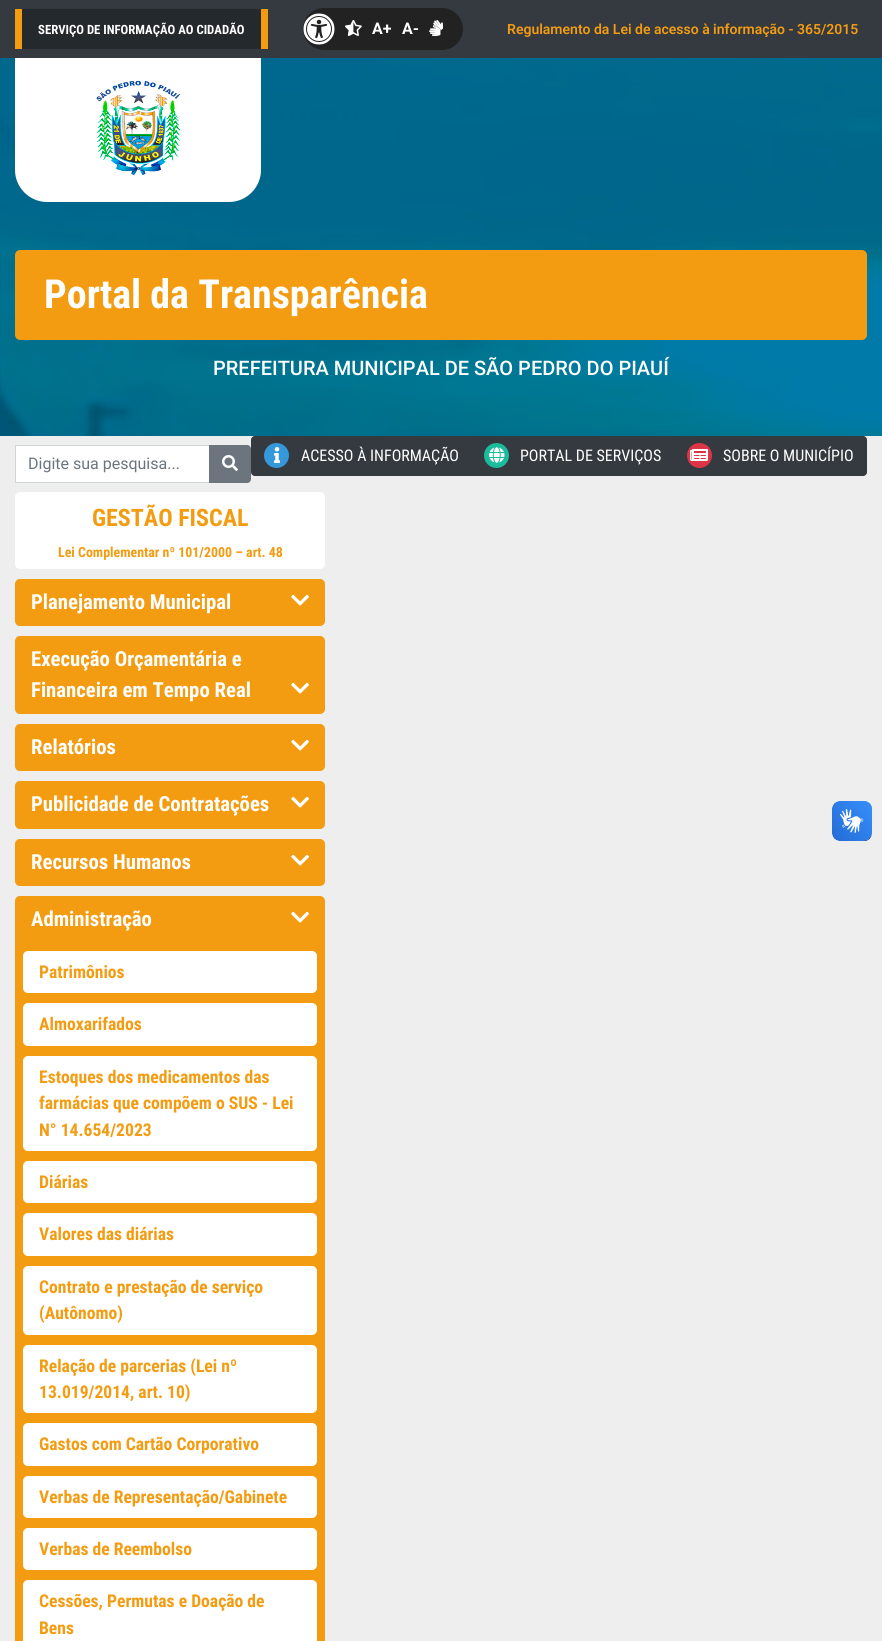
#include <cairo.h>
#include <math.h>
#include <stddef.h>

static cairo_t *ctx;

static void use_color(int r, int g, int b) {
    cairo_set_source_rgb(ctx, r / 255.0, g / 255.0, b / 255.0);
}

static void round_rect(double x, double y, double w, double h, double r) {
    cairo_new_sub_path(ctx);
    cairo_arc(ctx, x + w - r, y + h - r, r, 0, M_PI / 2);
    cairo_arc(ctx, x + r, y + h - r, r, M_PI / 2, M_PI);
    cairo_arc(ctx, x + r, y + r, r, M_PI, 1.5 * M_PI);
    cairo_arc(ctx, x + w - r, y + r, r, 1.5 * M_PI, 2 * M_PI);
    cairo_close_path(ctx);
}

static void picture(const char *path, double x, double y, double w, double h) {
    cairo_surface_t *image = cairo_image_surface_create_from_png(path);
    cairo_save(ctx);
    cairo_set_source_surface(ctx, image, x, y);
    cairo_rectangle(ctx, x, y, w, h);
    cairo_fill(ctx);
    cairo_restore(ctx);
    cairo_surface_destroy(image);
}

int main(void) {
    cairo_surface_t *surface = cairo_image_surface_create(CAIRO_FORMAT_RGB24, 882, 1641);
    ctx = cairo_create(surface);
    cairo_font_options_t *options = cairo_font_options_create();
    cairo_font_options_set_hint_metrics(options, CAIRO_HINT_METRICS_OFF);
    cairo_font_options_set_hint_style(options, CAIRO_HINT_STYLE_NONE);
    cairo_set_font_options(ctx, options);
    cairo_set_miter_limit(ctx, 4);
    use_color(238, 238, 238);
    cairo_paint(ctx);
    picture("img1.png", 0, 58, 882, 378);
    use_color(52, 58, 64);
    cairo_rectangle(ctx, 0, 0, 882, 58);
    cairo_fill(ctx);
    use_color(36, 41, 45);
    cairo_rectangle(ctx, 22, 9, 239, 40);
    cairo_fill(ctx);
    use_color(243, 156, 18);
    cairo_rectangle(ctx, 261, 9, 7, 40);
    cairo_fill(ctx);
    cairo_rectangle(ctx, 15, 9, 7, 40);
    cairo_fill(ctx);
    cairo_select_font_face(ctx, "Roboto Condensed", CAIRO_FONT_SLANT_NORMAL, CAIRO_FONT_WEIGHT_BOLD);
    cairo_set_font_size(ctx, 12.75);
    use_color(255, 255, 255);
    cairo_move_to(ctx, 38, 34);
    cairo_show_text(ctx, "SERVIÇO DE INFORMAÇÃO AO CIDADÃO");
    use_color(34, 34, 34);
    round_rect(303, 8, 160, 42, 21);
    cairo_fill(ctx);
    picture("img2.png", 303, 13, 32, 32);
    picture("img3.png", 345, 20, 17, 16);
    cairo_select_font_face(ctx, "Roboto", CAIRO_FONT_SLANT_NORMAL, CAIRO_FONT_WEIGHT_BOLD);
    cairo_set_font_size(ctx, 16);
    use_color(255, 255, 255);
    cairo_move_to(ctx, 372, 34);
    cairo_show_text(ctx, "A+");
    cairo_move_to(ctx, 402, 34);
    cairo_show_text(ctx, "A-");
    picture("img4.png", 429, 20, 14, 16);
    cairo_select_font_face(ctx, "Roboto SemiBold", CAIRO_FONT_SLANT_NORMAL, CAIRO_FONT_WEIGHT_NORMAL);
    cairo_set_font_size(ctx, 14);
    use_color(243, 156, 18);
    cairo_move_to(ctx, 507, 34);
    cairo_show_text(ctx, "Regulamento da Lei de acesso à informação - 365/2015");
    cairo_set_source_rgba(ctx, 0, 0, 0, 0.3);
    cairo_rectangle(ctx, 0, 58, 882, 378);
    cairo_fill(ctx);
    use_color(255, 255, 255);
    cairo_new_path(ctx);
    cairo_move_to(ctx, 15, 58);
    cairo_line_to(ctx, 261, 58);
    cairo_line_to(ctx, 261, 170);
    cairo_curve_to(ctx, 261, 187.5, 246.5, 202, 229, 202);
    cairo_line_to(ctx, 47, 202);
    cairo_curve_to(ctx, 29.5, 202, 15, 187.5, 15, 170);
    cairo_close_path(ctx);
    cairo_fill(ctx);
    picture("img5.png", 96, 80, 86, 96);
    use_color(243, 156, 18);
    round_rect(17.5, 252.5, 847, 85, 2.5);
    cairo_fill_preserve(ctx);
    cairo_set_line_width(ctx, 5);
    cairo_stroke(ctx);
    cairo_select_font_face(ctx, "Roboto Condensed", CAIRO_FONT_SLANT_NORMAL, CAIRO_FONT_WEIGHT_BOLD);
    cairo_set_font_size(ctx, 40);
    use_color(255, 255, 255);
    cairo_move_to(ctx, 44, 308);
    cairo_show_text(ctx, "Portal da Transparência");
    cairo_select_font_face(ctx, "Roboto Medium", CAIRO_FONT_SLANT_NORMAL, CAIRO_FONT_WEIGHT_NORMAL);
    cairo_set_font_size(ctx, 20);
    cairo_move_to(ctx, 213, 375);
    cairo_show_text(ctx, "PREFEITURA MUNICIPAL DE SÃO PEDRO DO PIAUÍ");
    cairo_rectangle(ctx, 15.5, 445.5, 194, 37);
    cairo_fill_preserve(ctx);
    use_color(206, 212, 218);
    cairo_set_line_width(ctx, 1);
    cairo_stroke(ctx);
    cairo_select_font_face(ctx, "Roboto", CAIRO_FONT_SLANT_NORMAL, CAIRO_FONT_WEIGHT_NORMAL);
    cairo_set_font_size(ctx, 16);
    use_color(108, 117, 125);
    cairo_move_to(ctx, 28, 469);
    cairo_show_text(ctx, "Digite sua pesquisa...");
    cairo_new_path(ctx);
    cairo_move_to(ctx, 209.5, 445.5);
    cairo_line_to(ctx, 247, 445.5);
    cairo_curve_to(ctx, 249, 445.5, 250.5, 447, 250.5, 449);
    cairo_line_to(ctx, 250.5, 479);
    cairo_curve_to(ctx, 250.5, 481, 249, 482.5, 247, 482.5);
    cairo_line_to(ctx, 209.5, 482.5);
    cairo_close_path(ctx);
    cairo_fill_preserve(ctx);
    cairo_stroke(ctx);
    picture("img6.png", 222, 455, 16, 16);
    use_color(52, 58, 64);
    cairo_new_path(ctx);
    cairo_move_to(ctx, 255, 436.5);
    cairo_line_to(ctx, 471.5, 436.5);
    cairo_line_to(ctx, 471.5, 475.5);
    cairo_line_to(ctx, 255, 475.5);
    cairo_curve_to(ctx, 253, 475.5, 251.5, 474, 251.5, 472);
    cairo_line_to(ctx, 251.5, 440);
    cairo_curve_to(ctx, 251.5, 438, 253, 436.5, 255, 436.5);
    cairo_close_path(ctx);
    cairo_fill_preserve(ctx);
    cairo_stroke(ctx);
    use_color(52, 152, 219);
    cairo_arc(ctx, 276.5, 455.5, 12.5, 0, 2 * M_PI);
    cairo_fill(ctx);
    picture("img7.png", 274, 447, 6, 16);
    cairo_select_font_face(ctx, "Roboto Condensed", CAIRO_FONT_SLANT_NORMAL, CAIRO_FONT_WEIGHT_NORMAL);
    use_color(255, 255, 255);
    cairo_move_to(ctx, 301, 461);
    cairo_show_text(ctx, "ACESSO À INFORMAÇÃO");
    use_color(52, 58, 64);
    cairo_rectangle(ctx, 472, 436, 202, 40);
    cairo_fill(ctx);
    use_color(26, 188, 156);
    cairo_arc(ctx, 496.5, 455.5, 12.5, 0, 2 * M_PI);
    cairo_fill(ctx);
    picture("img8.png", 489, 447, 16, 16);
    use_color(255, 255, 255);
    cairo_move_to(ctx, 520, 461);
    cairo_show_text(ctx, "PORTAL DE SERVIÇOS");
    use_color(52, 58, 64);
    cairo_new_path(ctx);
    cairo_move_to(ctx, 674.5, 436.5);
    cairo_line_to(ctx, 863, 436.5);
    cairo_curve_to(ctx, 865, 436.5, 866.5, 438, 866.5, 440);
    cairo_line_to(ctx, 866.5, 472);
    cairo_curve_to(ctx, 866.5, 474, 865, 475.5, 863, 475.5);
    cairo_line_to(ctx, 674.5, 475.5);
    cairo_close_path(ctx);
    cairo_fill_preserve(ctx);
    cairo_stroke(ctx);
    use_color(220, 53, 69);
    cairo_arc(ctx, 699.5, 455.5, 12.5, 0, 2 * M_PI);
    cairo_fill(ctx);
    picture("img9.png", 690, 449, 18, 12);
    use_color(255, 255, 255);
    cairo_move_to(ctx, 723, 461);
    cairo_show_text(ctx, "SOBRE O MUNICÍPIO");
    round_rect(15, 492, 310, 77, 5);
    cairo_fill(ctx);
    cairo_select_font_face(ctx, "Roboto Condensed", CAIRO_FONT_SLANT_NORMAL, CAIRO_FONT_WEIGHT_BOLD);
    cairo_set_font_size(ctx, 24);
    use_color(243, 156, 18);
    cairo_move_to(ctx, 92, 526);
    cairo_show_text(ctx, "GESTÃO FISCAL");
    cairo_set_font_size(ctx, 13.9);
    cairo_move_to(ctx, 58, 557);
    cairo_show_text(ctx, "Lei Complementar nº 101/2000 – art. 48");
    round_rect(15, 579, 310, 47, 5);
    cairo_fill(ctx);
    cairo_set_font_size(ctx, 20.75);
    use_color(255, 255, 255);
    cairo_move_to(ctx, 31, 609);
    cairo_show_text(ctx, "Planejamento Municipal");
    picture("img10.png", 291, 594, 18, 12);
    use_color(243, 156, 18);
    round_rect(15, 636, 310, 78, 5);
    cairo_fill(ctx);
    use_color(255, 255, 255);
    cairo_move_to(ctx, 31, 666);
    cairo_show_text(ctx, "Execução Orçamentária e");
    cairo_move_to(ctx, 31, 697);
    cairo_show_text(ctx, "Financeira em Tempo Real");
    picture("img10.png", 291, 682, 18, 12);
    use_color(243, 156, 18);
    round_rect(15, 724, 310, 47, 5);
    cairo_fill(ctx);
    use_color(255, 255, 255);
    cairo_move_to(ctx, 31, 754);
    cairo_show_text(ctx, "Relatórios");
    picture("img10.png", 291, 739, 18, 12);
    use_color(243, 156, 18);
    round_rect(15, 781, 310, 48, 5);
    cairo_fill(ctx);
    use_color(255, 255, 255);
    cairo_move_to(ctx, 31, 811);
    cairo_show_text(ctx, "Publicidade de Contratações");
    picture("img10.png", 291, 796, 18, 12);
    use_color(243, 156, 18);
    round_rect(15, 839, 310, 47, 5);
    cairo_fill(ctx);
    use_color(255, 255, 255);
    cairo_move_to(ctx, 31, 869);
    cairo_show_text(ctx, "Recursos Humanos");
    picture("img10.png", 291, 854, 18, 12);
    use_color(243, 156, 18);
    round_rect(15, 896, 310, 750, 5);
    cairo_fill(ctx);
    use_color(255, 255, 255);
    cairo_move_to(ctx, 31, 926);
    cairo_show_text(ctx, "Administração");
    picture("img10.png", 291, 911, 18, 12);
    round_rect(23, 951, 294, 42, 5);
    cairo_fill(ctx);
    cairo_set_font_size(ctx, 17.6);
    use_color(243, 156, 18);
    cairo_move_to(ctx, 39, 978);
    cairo_show_text(ctx, "Patrimônios");
    use_color(255, 255, 255);
    round_rect(23, 1003, 294, 43, 5);
    cairo_fill(ctx);
    use_color(243, 156, 18);
    cairo_move_to(ctx, 39, 1030);
    cairo_show_text(ctx, "Almoxarifados");
    use_color(255, 255, 255);
    round_rect(23, 1056, 294, 95, 5);
    cairo_fill(ctx);
    use_color(243, 156, 18);
    cairo_move_to(ctx, 39, 1083);
    cairo_show_text(ctx, "Estoques dos medicamentos das");
    cairo_move_to(ctx, 39, 1109);
    cairo_show_text(ctx, "farmácias que compõem o SUS - Lei");
    cairo_move_to(ctx, 39, 1136);
    cairo_show_text(ctx, "N° 14.654/2023");
    use_color(255, 255, 255);
    round_rect(23, 1161, 294, 42, 5);
    cairo_fill(ctx);
    use_color(243, 156, 18);
    cairo_move_to(ctx, 39, 1188);
    cairo_show_text(ctx, "Diárias");
    use_color(255, 255, 255);
    round_rect(23, 1213, 294, 43, 5);
    cairo_fill(ctx);
    use_color(243, 156, 18);
    cairo_move_to(ctx, 39, 1240);
    cairo_show_text(ctx, "Valores das diárias");
    use_color(255, 255, 255);
    round_rect(23, 1266, 294, 69, 5);
    cairo_fill(ctx);
    use_color(243, 156, 18);
    cairo_move_to(ctx, 39, 1293);
    cairo_show_text(ctx, "Contrato e prestação de serviço");
    cairo_move_to(ctx, 39, 1319);
    cairo_show_text(ctx, "(Autônomo)");
    use_color(255, 255, 255);
    round_rect(23, 1345, 294, 68, 5);
    cairo_fill(ctx);
    use_color(243, 156, 18);
    cairo_move_to(ctx, 39, 1372);
    cairo_show_text(ctx, "Relação de parcerias (Lei nº");
    cairo_move_to(ctx, 39, 1398);
    cairo_show_text(ctx, "13.019/2014, art. 10)");
    use_color(255, 255, 255);
    round_rect(23, 1423, 294, 43, 5);
    cairo_fill(ctx);
    use_color(243, 156, 18);
    cairo_move_to(ctx, 39, 1450);
    cairo_show_text(ctx, "Gastos com Cartão Corporativo");
    use_color(255, 255, 255);
    round_rect(23, 1476, 294, 42, 5);
    cairo_fill(ctx);
    use_color(243, 156, 18);
    cairo_move_to(ctx, 39, 1503);
    cairo_show_text(ctx, "Verbas de Representação/Gabinete");
    use_color(255, 255, 255);
    round_rect(23, 1528, 294, 42, 5);
    cairo_fill(ctx);
    use_color(243, 156, 18);
    cairo_move_to(ctx, 39, 1555);
    cairo_show_text(ctx, "Verbas de Reembolso");
    use_color(255, 255, 255);
    round_rect(23, 1580, 294, 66, 5);
    cairo_fill(ctx);
    use_color(243, 156, 18);
    cairo_move_to(ctx, 39, 1607);
    cairo_show_text(ctx, "Cessões, Permutas e Doação de");
    cairo_move_to(ctx, 39, 1634);
    cairo_show_text(ctx, "Bens");
    picture("img11.png", 832, 801, 40, 40);
    picture("img12.png", 832, 801, 40, 40);
    cairo_surface_write_to_png(surface, "result.png");
    cairo_font_options_destroy(options);
    cairo_destroy(ctx);
    cairo_surface_destroy(surface);
    return 0;
}
